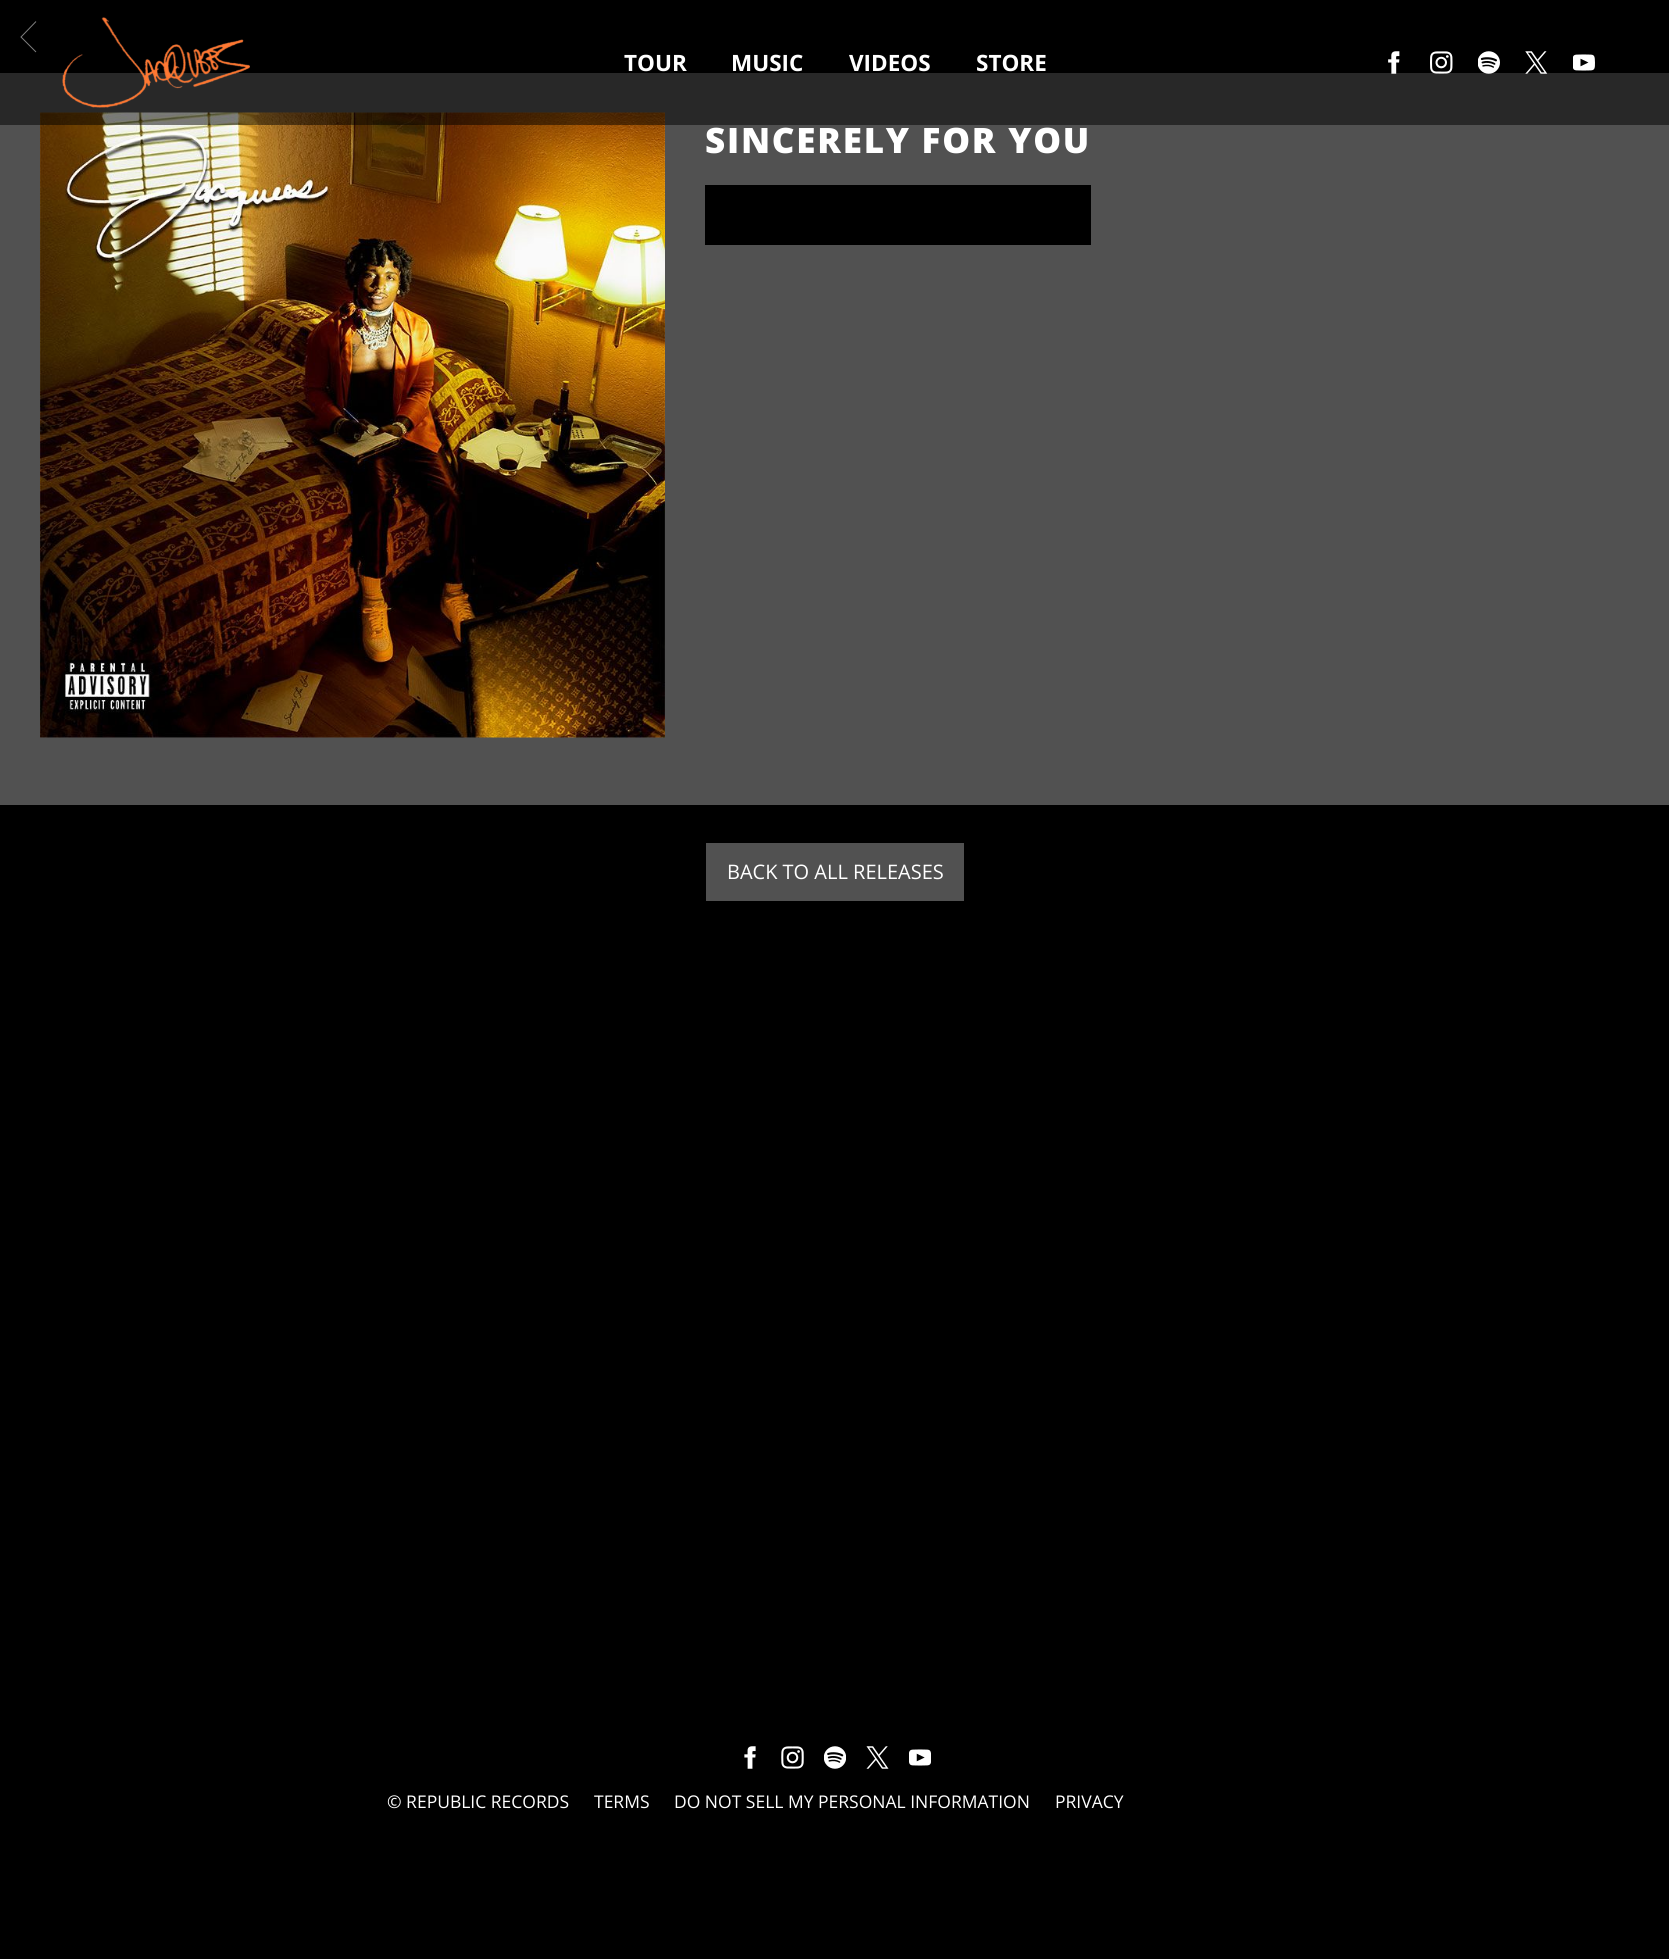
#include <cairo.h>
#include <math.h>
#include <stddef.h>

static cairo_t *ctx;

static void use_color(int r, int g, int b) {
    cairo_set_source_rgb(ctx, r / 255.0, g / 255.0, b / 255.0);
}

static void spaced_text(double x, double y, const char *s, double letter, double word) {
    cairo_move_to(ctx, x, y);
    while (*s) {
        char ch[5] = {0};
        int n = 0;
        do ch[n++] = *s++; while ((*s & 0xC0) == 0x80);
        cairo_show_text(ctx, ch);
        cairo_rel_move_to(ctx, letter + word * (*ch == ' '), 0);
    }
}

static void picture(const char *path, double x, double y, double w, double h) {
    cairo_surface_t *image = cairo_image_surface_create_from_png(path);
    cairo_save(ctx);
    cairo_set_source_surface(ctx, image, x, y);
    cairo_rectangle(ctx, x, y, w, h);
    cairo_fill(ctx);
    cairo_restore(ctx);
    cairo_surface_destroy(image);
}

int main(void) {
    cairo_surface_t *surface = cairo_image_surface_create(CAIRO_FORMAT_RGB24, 1669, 1959);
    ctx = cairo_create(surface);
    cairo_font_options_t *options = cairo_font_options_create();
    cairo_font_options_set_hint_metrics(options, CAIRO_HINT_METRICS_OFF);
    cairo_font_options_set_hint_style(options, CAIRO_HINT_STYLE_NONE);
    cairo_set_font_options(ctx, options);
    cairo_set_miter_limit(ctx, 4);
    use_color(0, 0, 0);
    cairo_paint(ctx);
    cairo_new_path(ctx);
    cairo_move_to(ctx, 36, 52);
    cairo_line_to(ctx, 21, 37);
    cairo_line_to(ctx, 36, 21.5);
    use_color(255, 255, 255);
    cairo_set_line_width(ctx, 1);
    cairo_stroke(ctx);
    use_color(81, 81, 81);
    cairo_rectangle(ctx, 0, 73, 1669, 732);
    cairo_fill(ctx);
    picture("img7.png", 40, 112, 625, 626);
    cairo_set_source_rgba(ctx, 0, 0, 0, 0.5);
    cairo_rectangle(ctx, 0, 21, 1669, 104);
    cairo_fill(ctx);
    picture("img1.png", 62, 17, 188, 91);
    cairo_select_font_face(ctx, "Open Sans", CAIRO_FONT_SLANT_NORMAL, CAIRO_FONT_WEIGHT_BOLD);
    cairo_set_font_size(ctx, 22.5);
    use_color(255, 255, 255);
    cairo_move_to(ctx, 624, 71);
    cairo_show_text(ctx, "TOUR");
    cairo_move_to(ctx, 731, 71);
    cairo_show_text(ctx, "MUSIC");
    cairo_move_to(ctx, 849, 71);
    cairo_show_text(ctx, "VIDEOS");
    cairo_move_to(ctx, 976, 71);
    cairo_show_text(ctx, "STORE");
    picture("img2.png", 1388, 51, 12, 23);
    picture("img3.png", 1430, 51, 23, 23);
    picture("img4.png", 1478, 51, 22, 23);
    picture("img5.png", 1525, 51, 23, 23);
    picture("img6.png", 1573, 54, 22, 17);
    cairo_select_font_face(ctx, "Open Sans ExtraBold", CAIRO_FONT_SLANT_NORMAL, CAIRO_FONT_WEIGHT_NORMAL);
    cairo_set_font_size(ctx, 35);
    spaced_text(705, 153, "SINCERELY FOR YOU", 1.75, 0);
    use_color(0, 0, 0);
    cairo_rectangle(ctx, 705, 185, 386, 60);
    cairo_fill(ctx);
    use_color(81, 81, 81);
    cairo_rectangle(ctx, 706, 843, 258, 58);
    cairo_fill(ctx);
    cairo_select_font_face(ctx, "Open Sans", CAIRO_FONT_SLANT_NORMAL, CAIRO_FONT_WEIGHT_NORMAL);
    cairo_set_font_size(ctx, 20);
    use_color(255, 255, 255);
    cairo_move_to(ctx, 727, 879);
    cairo_show_text(ctx, "BACK TO ALL RELEASES");
    picture("img8.png", 744, 1746, 12, 23);
    picture("img9.png", 781, 1746, 23, 23);
    picture("img10.png", 824, 1746, 22, 23);
    picture("img11.png", 866, 1746, 23, 23);
    picture("img12.png", 909, 1749, 22, 17);
    cairo_set_font_size(ctx, 17.5);
    cairo_move_to(ctx, 387, 1808);
    cairo_show_text(ctx, "© REPUBLIC RECORDS");
    cairo_move_to(ctx, 594, 1808);
    cairo_show_text(ctx, "TERMS");
    cairo_move_to(ctx, 674, 1808);
    cairo_show_text(ctx, "DO NOT SELL MY PERSONAL INFORMATION");
    cairo_move_to(ctx, 1055, 1808);
    cairo_show_text(ctx, "PRIVACY");
    cairo_surface_write_to_png(surface, "result.png");
    cairo_font_options_destroy(options);
    cairo_destroy(ctx);
    cairo_surface_destroy(surface);
    return 0;
}
